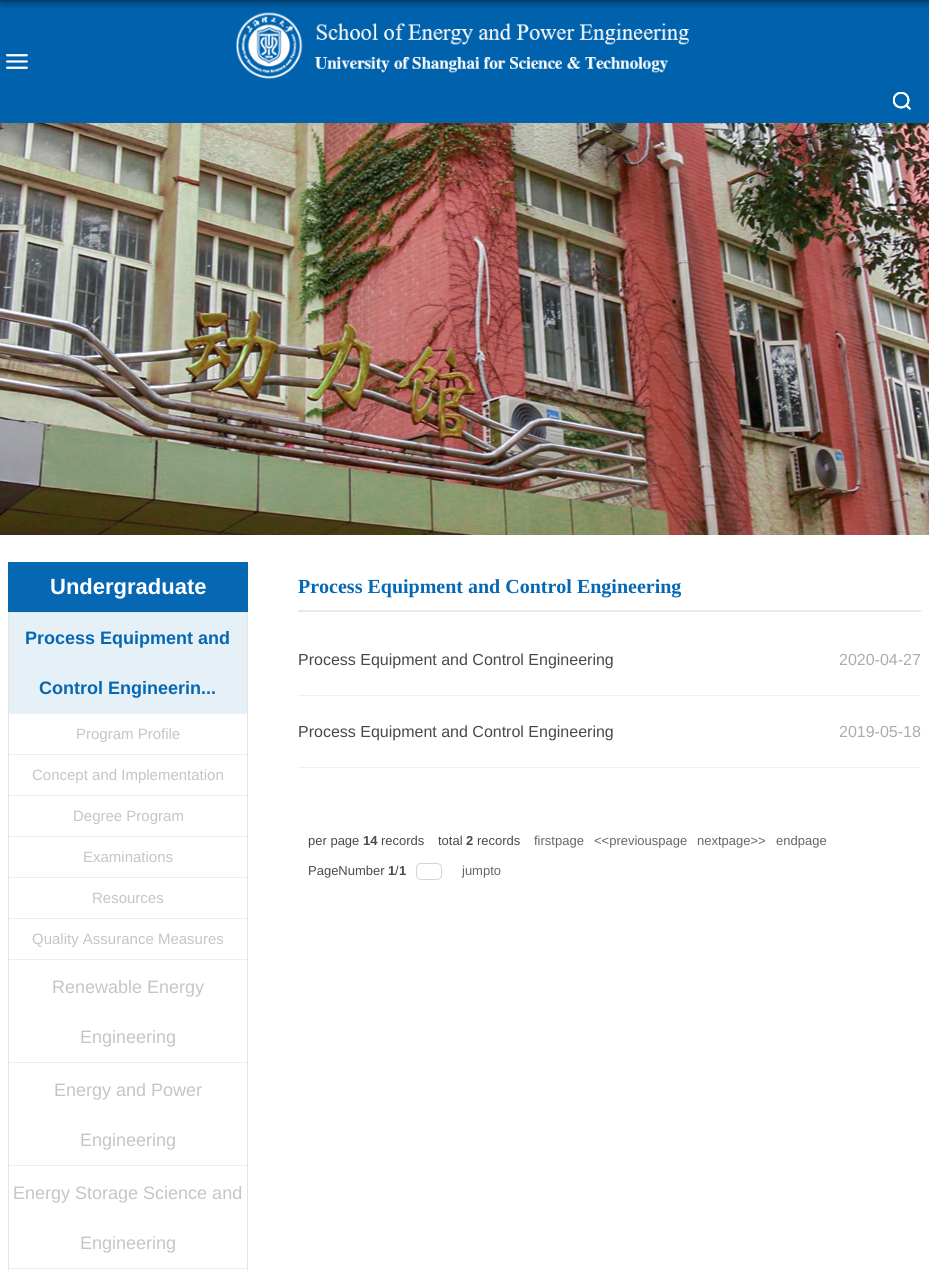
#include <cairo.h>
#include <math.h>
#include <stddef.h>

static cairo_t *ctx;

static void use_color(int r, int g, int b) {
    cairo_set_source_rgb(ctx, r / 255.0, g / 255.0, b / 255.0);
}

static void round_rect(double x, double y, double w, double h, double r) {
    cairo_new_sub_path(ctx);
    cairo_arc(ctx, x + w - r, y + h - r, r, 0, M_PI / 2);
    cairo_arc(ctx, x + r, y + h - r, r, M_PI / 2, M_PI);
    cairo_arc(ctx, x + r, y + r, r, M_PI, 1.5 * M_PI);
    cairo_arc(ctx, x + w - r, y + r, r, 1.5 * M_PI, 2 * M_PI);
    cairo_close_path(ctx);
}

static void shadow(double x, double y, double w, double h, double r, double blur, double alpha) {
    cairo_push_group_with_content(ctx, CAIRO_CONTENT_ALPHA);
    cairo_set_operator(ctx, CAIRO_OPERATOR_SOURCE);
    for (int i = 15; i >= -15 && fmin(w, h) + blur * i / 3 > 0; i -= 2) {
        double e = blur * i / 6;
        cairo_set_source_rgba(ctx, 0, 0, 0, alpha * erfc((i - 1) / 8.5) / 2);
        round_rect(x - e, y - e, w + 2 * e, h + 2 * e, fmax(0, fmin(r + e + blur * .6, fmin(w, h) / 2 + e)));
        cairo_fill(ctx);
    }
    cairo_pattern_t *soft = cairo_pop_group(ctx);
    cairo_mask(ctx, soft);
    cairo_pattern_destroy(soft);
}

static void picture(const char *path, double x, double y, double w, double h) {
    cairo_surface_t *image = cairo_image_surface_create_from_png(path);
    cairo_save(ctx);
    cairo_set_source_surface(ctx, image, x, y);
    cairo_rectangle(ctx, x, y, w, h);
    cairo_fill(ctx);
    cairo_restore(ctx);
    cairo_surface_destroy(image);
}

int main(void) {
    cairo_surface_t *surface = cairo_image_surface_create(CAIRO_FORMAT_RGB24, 929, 1271);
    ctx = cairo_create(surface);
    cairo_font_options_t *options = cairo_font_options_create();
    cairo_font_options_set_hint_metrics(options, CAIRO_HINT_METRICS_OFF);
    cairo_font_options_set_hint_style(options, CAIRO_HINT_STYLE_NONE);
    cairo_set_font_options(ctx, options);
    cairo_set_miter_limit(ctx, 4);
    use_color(255, 255, 255);
    cairo_paint(ctx);
    use_color(0, 98, 173);
    cairo_rectangle(ctx, 0, 0, 929, 123);
    cairo_fill(ctx);
    picture("img1.png", 6, 54, 22, 15);
    picture("img2.png", 236, 12, 453, 67);
    picture("img3.png", 893, 92, 17, 17);
    picture("img4.png", 893, 92, 18, 18);
    use_color(0, 0, 0);
    shadow(0, -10, 929, 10, 0, 5, 0.8);
    picture("img5.png", 0, 123, 929, 412);
    use_color(6, 104, 179);
    cairo_rectangle(ctx, 8, 562, 240, 50);
    cairo_fill(ctx);
    cairo_select_font_face(ctx, "Liberation Sans", CAIRO_FONT_SLANT_NORMAL, CAIRO_FONT_WEIGHT_BOLD);
    cairo_set_font_size(ctx, 22);
    use_color(255, 255, 255);
    cairo_move_to(ctx, 50, 594);
    cairo_show_text(ctx, "Undergraduate");
    cairo_rectangle(ctx, 8.5, 612.5, 239, 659);
    use_color(228, 228, 228);
    cairo_set_line_width(ctx, 1);
    cairo_stroke(ctx);
    use_color(230, 240, 247);
    cairo_rectangle(ctx, 9, 613, 238, 100);
    cairo_fill(ctx);
    cairo_set_font_size(ctx, 18);
    use_color(6, 104, 179);
    cairo_move_to(ctx, 25, 644);
    cairo_show_text(ctx, "Process Equipment and");
    cairo_move_to(ctx, 39, 694);
    cairo_show_text(ctx, "Control Engineerin...");
    use_color(238, 238, 238);
    cairo_rectangle(ctx, 9, 713, 238, 1);
    cairo_fill(ctx);
    cairo_select_font_face(ctx, "Liberation Sans", CAIRO_FONT_SLANT_NORMAL, CAIRO_FONT_WEIGHT_NORMAL);
    cairo_set_font_size(ctx, 15);
    use_color(197, 197, 197);
    cairo_move_to(ctx, 76, 739);
    cairo_show_text(ctx, "Program Profile");
    use_color(238, 238, 238);
    cairo_rectangle(ctx, 9, 754, 238, 1);
    cairo_fill(ctx);
    use_color(197, 197, 197);
    cairo_move_to(ctx, 32, 780);
    cairo_show_text(ctx, "Concept and Implementation");
    use_color(238, 238, 238);
    cairo_rectangle(ctx, 9, 795, 238, 1);
    cairo_fill(ctx);
    use_color(197, 197, 197);
    cairo_move_to(ctx, 73, 821);
    cairo_show_text(ctx, "Degree Program");
    use_color(238, 238, 238);
    cairo_rectangle(ctx, 9, 836, 238, 1);
    cairo_fill(ctx);
    use_color(197, 197, 197);
    cairo_move_to(ctx, 83, 862);
    cairo_show_text(ctx, "Examinations");
    use_color(238, 238, 238);
    cairo_rectangle(ctx, 9, 877, 238, 1);
    cairo_fill(ctx);
    use_color(197, 197, 197);
    cairo_move_to(ctx, 92, 903);
    cairo_show_text(ctx, "Resources");
    use_color(238, 238, 238);
    cairo_rectangle(ctx, 9, 918, 238, 1);
    cairo_fill(ctx);
    use_color(246, 234, 234);
    cairo_rectangle(ctx, 9, 959, 238, 1);
    cairo_fill(ctx);
    use_color(197, 197, 197);
    cairo_move_to(ctx, 32, 944);
    cairo_show_text(ctx, "Quality Assurance Measures");
    use_color(246, 234, 234);
    cairo_rectangle(ctx, 9, 1062, 238, 1);
    cairo_fill(ctx);
    cairo_set_font_size(ctx, 18);
    use_color(197, 197, 197);
    cairo_move_to(ctx, 52, 993);
    cairo_show_text(ctx, "Renewable Energy");
    cairo_move_to(ctx, 80, 1043);
    cairo_show_text(ctx, "Engineering");
    use_color(246, 234, 234);
    cairo_rectangle(ctx, 9, 1165, 238, 1);
    cairo_fill(ctx);
    use_color(197, 197, 197);
    cairo_move_to(ctx, 54, 1096);
    cairo_show_text(ctx, "Energy and Power");
    cairo_move_to(ctx, 80, 1146);
    cairo_show_text(ctx, "Engineering");
    use_color(246, 234, 234);
    cairo_rectangle(ctx, 9, 1268, 238, 1);
    cairo_fill(ctx);
    use_color(197, 197, 197);
    cairo_move_to(ctx, 13, 1199);
    cairo_show_text(ctx, "Energy Storage Science and");
    cairo_move_to(ctx, 80, 1249);
    cairo_show_text(ctx, "Engineering");
    use_color(233, 233, 233);
    cairo_rectangle(ctx, 298, 610, 623, 2);
    cairo_fill(ctx);
    cairo_select_font_face(ctx, "Liberation Serif", CAIRO_FONT_SLANT_NORMAL, CAIRO_FONT_WEIGHT_BOLD);
    cairo_set_font_size(ctx, 20);
    use_color(6, 104, 179);
    cairo_move_to(ctx, 298, 593);
    cairo_show_text(ctx, "Process Equipment and Control Engineering");
    use_color(240, 240, 240);
    cairo_rectangle(ctx, 298, 695, 623, 1);
    cairo_fill(ctx);
    cairo_select_font_face(ctx, "Liberation Sans", CAIRO_FONT_SLANT_NORMAL, CAIRO_FONT_WEIGHT_NORMAL);
    cairo_set_font_size(ctx, 16);
    use_color(73, 73, 73);
    cairo_move_to(ctx, 298, 665);
    cairo_show_text(ctx, "Process Equipment and Control Engineering");
    use_color(173, 171, 171);
    cairo_move_to(ctx, 839, 665);
    cairo_show_text(ctx, "2020-04-27");
    use_color(240, 240, 240);
    cairo_rectangle(ctx, 298, 767, 623, 1);
    cairo_fill(ctx);
    use_color(73, 73, 73);
    cairo_move_to(ctx, 298, 737);
    cairo_show_text(ctx, "Process Equipment and Control Engineering");
    use_color(173, 171, 171);
    cairo_move_to(ctx, 839, 737);
    cairo_show_text(ctx, "2019-05-18");
    cairo_set_font_size(ctx, 13);
    use_color(73, 73, 73);
    cairo_move_to(ctx, 308, 845);
    cairo_show_text(ctx, "per page");
    cairo_select_font_face(ctx, "Liberation Sans", CAIRO_FONT_SLANT_NORMAL, CAIRO_FONT_WEIGHT_BOLD);
    cairo_move_to(ctx, 363, 845);
    cairo_show_text(ctx, "14");
    cairo_select_font_face(ctx, "Liberation Sans", CAIRO_FONT_SLANT_NORMAL, CAIRO_FONT_WEIGHT_NORMAL);
    cairo_move_to(ctx, 381, 845);
    cairo_show_text(ctx, "records");
    cairo_move_to(ctx, 438, 845);
    cairo_show_text(ctx, "total");
    cairo_select_font_face(ctx, "Liberation Sans", CAIRO_FONT_SLANT_NORMAL, CAIRO_FONT_WEIGHT_BOLD);
    cairo_move_to(ctx, 466, 845);
    cairo_show_text(ctx, "2");
    cairo_select_font_face(ctx, "Liberation Sans", CAIRO_FONT_SLANT_NORMAL, CAIRO_FONT_WEIGHT_NORMAL);
    cairo_move_to(ctx, 477, 845);
    cairo_show_text(ctx, "records");
    use_color(102, 102, 102);
    cairo_move_to(ctx, 534, 845);
    cairo_show_text(ctx, "firstpage");
    cairo_move_to(ctx, 594, 845);
    cairo_show_text(ctx, "<<previouspage");
    cairo_move_to(ctx, 697, 845);
    cairo_show_text(ctx, "nextpage>>");
    cairo_move_to(ctx, 776, 845);
    cairo_show_text(ctx, "endpage");
    use_color(73, 73, 73);
    cairo_move_to(ctx, 308, 875);
    cairo_show_text(ctx, "PageNumber");
    cairo_select_font_face(ctx, "Liberation Sans", CAIRO_FONT_SLANT_NORMAL, CAIRO_FONT_WEIGHT_BOLD);
    cairo_move_to(ctx, 388, 875);
    cairo_show_text(ctx, "1");
    cairo_select_font_face(ctx, "Liberation Sans", CAIRO_FONT_SLANT_NORMAL, CAIRO_FONT_WEIGHT_NORMAL);
    cairo_move_to(ctx, 395, 875);
    cairo_show_text(ctx, "/");
    cairo_select_font_face(ctx, "Liberation Sans", CAIRO_FONT_SLANT_NORMAL, CAIRO_FONT_WEIGHT_BOLD);
    cairo_move_to(ctx, 399, 875);
    cairo_show_text(ctx, "1");
    round_rect(416.5, 863.5, 25, 16, 4.5);
    use_color(213, 213, 213);
    cairo_stroke(ctx);
    cairo_select_font_face(ctx, "Liberation Sans", CAIRO_FONT_SLANT_NORMAL, CAIRO_FONT_WEIGHT_NORMAL);
    use_color(102, 102, 102);
    cairo_move_to(ctx, 462, 875);
    cairo_show_text(ctx, "jumpto");
    cairo_surface_write_to_png(surface, "result.png");
    cairo_font_options_destroy(options);
    cairo_destroy(ctx);
    cairo_surface_destroy(surface);
    return 0;
}
